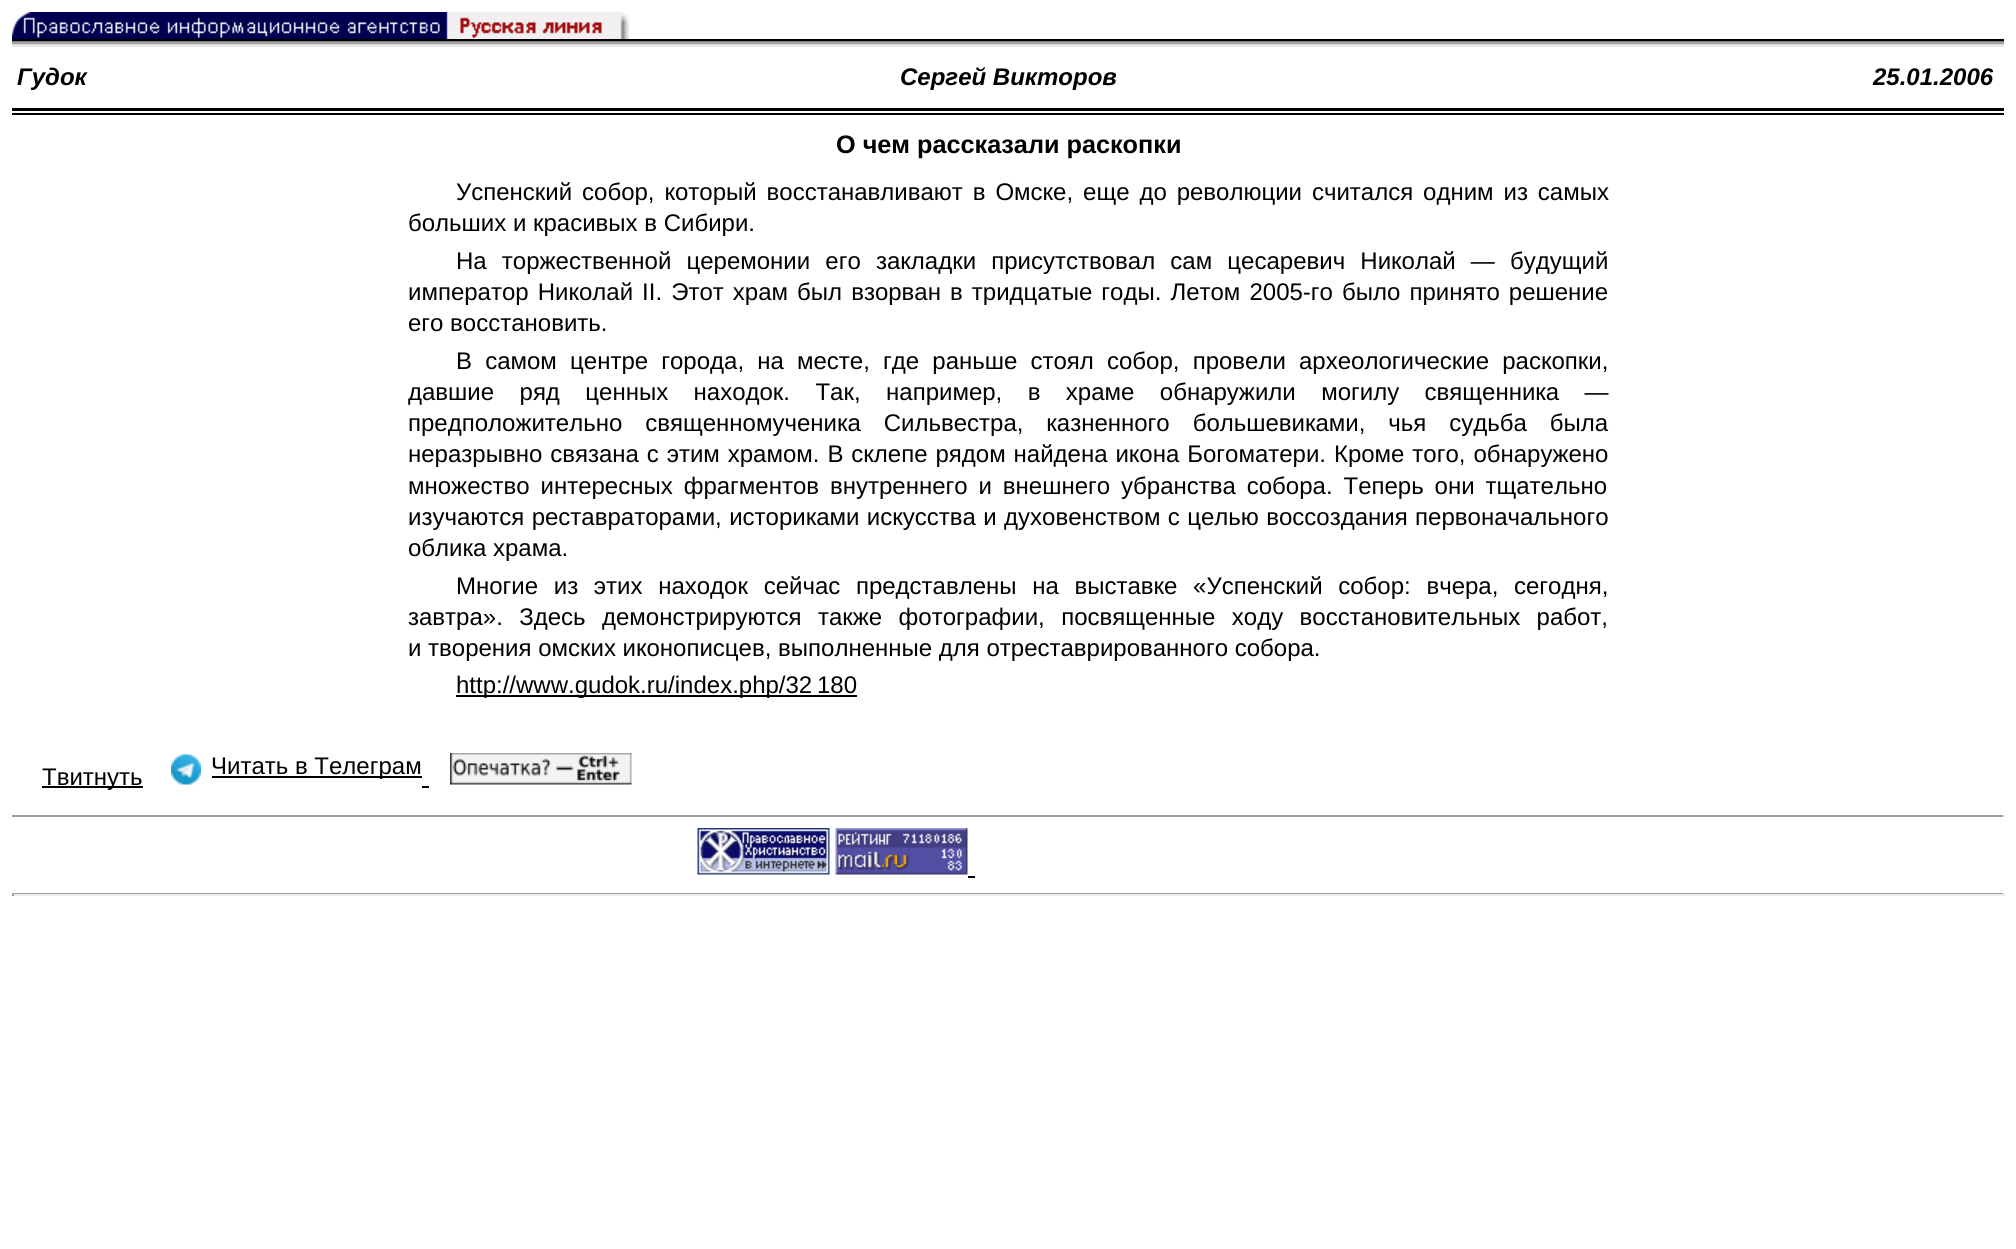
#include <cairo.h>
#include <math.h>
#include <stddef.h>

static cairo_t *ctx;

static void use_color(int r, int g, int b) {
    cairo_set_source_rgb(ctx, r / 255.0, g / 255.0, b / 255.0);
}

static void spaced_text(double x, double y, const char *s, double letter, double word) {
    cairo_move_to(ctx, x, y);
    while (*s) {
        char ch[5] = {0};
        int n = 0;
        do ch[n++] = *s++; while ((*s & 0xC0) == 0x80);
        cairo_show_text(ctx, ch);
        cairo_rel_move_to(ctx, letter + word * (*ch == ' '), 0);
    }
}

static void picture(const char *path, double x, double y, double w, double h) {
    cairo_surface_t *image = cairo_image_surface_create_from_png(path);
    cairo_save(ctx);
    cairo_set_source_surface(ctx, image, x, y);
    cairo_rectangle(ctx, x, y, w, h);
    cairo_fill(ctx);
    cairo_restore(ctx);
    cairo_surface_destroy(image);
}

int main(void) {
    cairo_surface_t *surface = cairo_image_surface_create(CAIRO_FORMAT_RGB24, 2016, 1249);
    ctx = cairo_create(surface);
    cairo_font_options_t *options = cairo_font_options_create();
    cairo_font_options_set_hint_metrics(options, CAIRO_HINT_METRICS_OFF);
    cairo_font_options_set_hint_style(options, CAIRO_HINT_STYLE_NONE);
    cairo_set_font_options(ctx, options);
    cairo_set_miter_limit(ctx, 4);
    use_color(255, 255, 255);
    cairo_paint(ctx);
    picture("img1.png", 12, 12, 618, 27);
    use_color(0, 0, 0);
    cairo_rectangle(ctx, 12, 39, 1992, 2);
    cairo_fill(ctx);
    use_color(128, 128, 128);
    cairo_rectangle(ctx, 12, 41, 1992, 1);
    cairo_fill(ctx);
    use_color(162, 162, 162);
    cairo_rectangle(ctx, 12, 42, 1992, 2);
    cairo_fill(ctx);
    use_color(221, 221, 221);
    cairo_rectangle(ctx, 12, 44, 1992, 1);
    cairo_fill(ctx);
    use_color(232, 232, 232);
    cairo_rectangle(ctx, 12, 45, 1992, 2);
    cairo_fill(ctx);
    cairo_select_font_face(ctx, "Liberation Sans", CAIRO_FONT_SLANT_ITALIC, CAIRO_FONT_WEIGHT_BOLD);
    cairo_set_font_size(ctx, 24);
    use_color(0, 0, 0);
    cairo_move_to(ctx, 17, 85);
    cairo_show_text(ctx, "Гудок");
    cairo_move_to(ctx, 900, 85);
    cairo_show_text(ctx, "Сергей Викторов");
    cairo_move_to(ctx, 1873, 85);
    cairo_show_text(ctx, "25.01.2006");
    cairo_rectangle(ctx, 12, 108, 1992, 3);
    cairo_fill(ctx);
    cairo_rectangle(ctx, 12, 113, 1992, 2);
    cairo_fill(ctx);
    cairo_select_font_face(ctx, "Liberation Sans", CAIRO_FONT_SLANT_NORMAL, CAIRO_FONT_WEIGHT_BOLD);
    cairo_set_font_size(ctx, 25.25);
    cairo_move_to(ctx, 836, 153);
    cairo_show_text(ctx, "О чем рассказали раскопки");
    cairo_select_font_face(ctx, "Liberation Sans", CAIRO_FONT_SLANT_NORMAL, CAIRO_FONT_WEIGHT_NORMAL);
    cairo_set_font_size(ctx, 24);
    spaced_text(456, 200, "Успенский собор, который восстанавливают в Омске, еще до революции считался одним из самых", 0, 3.25);
    cairo_move_to(ctx, 408, 231);
    cairo_show_text(ctx, "больших и красивых в Сибири.");
    spaced_text(456, 269, "На торжественной церемонии его закладки присутствовал сам цесаревич Николай — будущий", 0, 8.5);
    spaced_text(408, 300, "император Николай II. Этот храм был взорван в тридцатые годы. Летом 2005-го было принято решение", 0, 2.4);
    cairo_move_to(ctx, 408, 331);
    cairo_show_text(ctx, "его восстановить.");
    spaced_text(456, 369, "В самом центре города, на месте, где раньше стоял собор, провели археологические раскопки,", 0, 6.5);
    spaced_text(408, 400, "давшие ряд ценных находок. Так, например, в храме обнаружили могилу священника —", 0, 18.75);
    spaced_text(408, 431, "предположительно священномученика Сильвестра, казненного большевиками, чья судьба была", 0, 16.25);
    spaced_text(408, 462, "неразрывно связана с этим храмом. В склепе рядом найдена икона Богоматери. Кроме того, обнаружено", 0, 1.25);
    spaced_text(408, 494, "множество интересных фрагментов внутреннего и внешнего убранства собора. Теперь они тщательно", 0, 4.25);
    spaced_text(408, 525, "изучаются реставраторами, историками искусства и духовенством с целью воссоздания первоначального", 0, 0.75);
    cairo_move_to(ctx, 408, 556);
    cairo_show_text(ctx, "облика храма.");
    spaced_text(456, 594, "Многие из этих находок сейчас представлены на выставке «Успенский собор: вчера, сегодня,", 0, 9);
    spaced_text(408, 625, "завтра». Здесь демонстрируются также фотографии, посвященные ходу восстановительных работ,", 0, 9.75);
    cairo_move_to(ctx, 408, 656);
    cairo_show_text(ctx, "и творения омских иконописцев, выполненные для отреставрированного собора.");
    cairo_rectangle(ctx, 456, 695, 401, 2);
    cairo_fill(ctx);
    cairo_move_to(ctx, 456, 693);
    cairo_show_text(ctx, "http://www.gudok.ru/index.php/32 180");
    cairo_rectangle(ctx, 42, 786, 101, 2);
    cairo_fill(ctx);
    cairo_move_to(ctx, 42, 785);
    cairo_show_text(ctx, "Твитнуть");
    picture("img2.png", 171, 754, 30, 31);
    cairo_rectangle(ctx, 212, 776, 210, 2);
    cairo_fill(ctx);
    cairo_move_to(ctx, 211, 774);
    cairo_show_text(ctx, "Читать в Телеграм");
    cairo_rectangle(ctx, 422, 786, 7, 2);
    cairo_fill(ctx);
    picture("img3.png", 450, 753, 182, 32);
    use_color(159, 159, 159);
    cairo_rectangle(ctx, 12, 815, 1992, 2);
    cairo_fill(ctx);
    use_color(238, 238, 238);
    cairo_rectangle(ctx, 2003, 815, 2, 2);
    cairo_fill(ctx);
    picture("img4.png", 697, 828, 133, 47);
    picture("img5.png", 835, 828, 133, 47);
    use_color(0, 0, 0);
    cairo_rectangle(ctx, 968, 876, 7, 2);
    cairo_fill(ctx);
    use_color(159, 159, 159);
    cairo_rectangle(ctx, 12, 893, 1992, 1);
    cairo_fill(ctx);
    use_color(238, 238, 238);
    cairo_rectangle(ctx, 2003, 893, 2, 3);
    cairo_fill(ctx);
    cairo_rectangle(ctx, 12, 894, 1992, 2);
    cairo_fill(ctx);
    use_color(159, 159, 159);
    cairo_rectangle(ctx, 12, 893, 2, 3);
    cairo_fill(ctx);
    cairo_surface_write_to_png(surface, "result.png");
    cairo_font_options_destroy(options);
    cairo_destroy(ctx);
    cairo_surface_destroy(surface);
    return 0;
}
